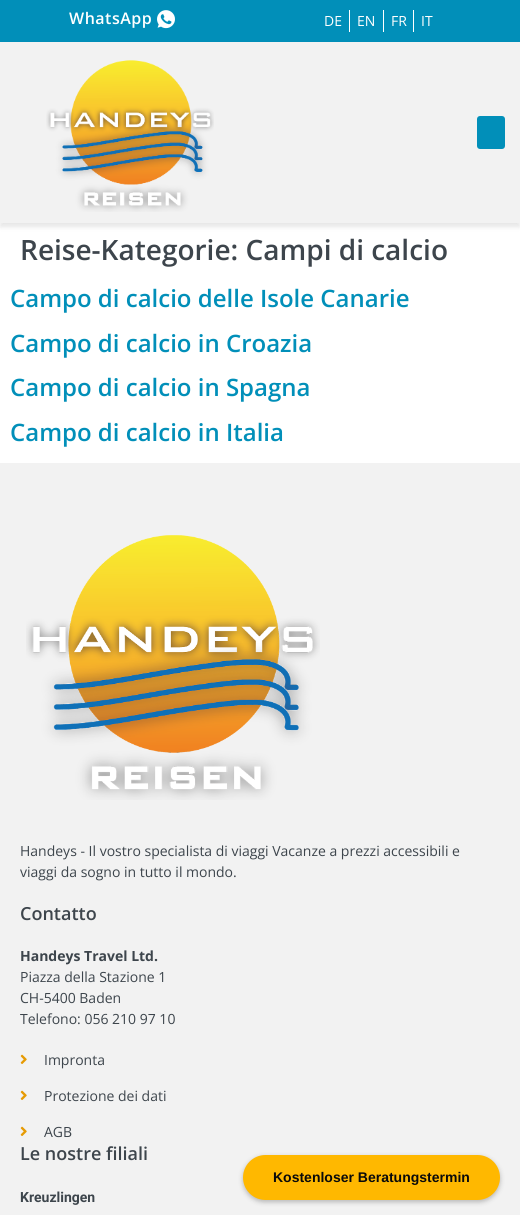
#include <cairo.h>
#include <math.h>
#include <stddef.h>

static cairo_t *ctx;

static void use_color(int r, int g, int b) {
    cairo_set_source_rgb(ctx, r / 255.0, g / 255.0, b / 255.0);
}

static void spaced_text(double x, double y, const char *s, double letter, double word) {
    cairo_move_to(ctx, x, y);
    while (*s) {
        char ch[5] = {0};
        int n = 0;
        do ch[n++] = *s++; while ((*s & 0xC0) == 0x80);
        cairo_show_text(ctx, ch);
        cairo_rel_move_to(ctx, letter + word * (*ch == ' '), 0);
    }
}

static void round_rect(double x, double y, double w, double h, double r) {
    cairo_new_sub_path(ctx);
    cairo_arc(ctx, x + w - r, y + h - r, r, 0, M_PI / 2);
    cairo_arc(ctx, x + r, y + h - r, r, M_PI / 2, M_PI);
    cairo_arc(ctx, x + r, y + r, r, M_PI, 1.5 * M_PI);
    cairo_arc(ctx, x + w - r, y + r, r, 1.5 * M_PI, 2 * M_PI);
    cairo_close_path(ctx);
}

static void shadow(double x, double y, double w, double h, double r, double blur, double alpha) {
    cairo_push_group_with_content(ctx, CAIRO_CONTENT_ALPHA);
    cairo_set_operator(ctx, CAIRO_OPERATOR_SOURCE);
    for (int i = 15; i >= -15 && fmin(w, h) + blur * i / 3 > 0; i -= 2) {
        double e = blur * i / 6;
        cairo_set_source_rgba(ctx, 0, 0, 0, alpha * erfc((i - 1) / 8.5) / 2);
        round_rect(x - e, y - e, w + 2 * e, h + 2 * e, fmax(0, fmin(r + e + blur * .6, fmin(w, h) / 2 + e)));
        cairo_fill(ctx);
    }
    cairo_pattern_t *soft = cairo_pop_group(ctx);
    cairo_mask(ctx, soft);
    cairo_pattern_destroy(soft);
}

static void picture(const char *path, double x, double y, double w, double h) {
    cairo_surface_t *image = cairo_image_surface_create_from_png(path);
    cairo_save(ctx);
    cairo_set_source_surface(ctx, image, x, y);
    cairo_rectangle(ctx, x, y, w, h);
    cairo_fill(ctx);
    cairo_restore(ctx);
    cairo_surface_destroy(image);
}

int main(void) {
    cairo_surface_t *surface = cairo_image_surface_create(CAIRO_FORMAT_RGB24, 520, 1215);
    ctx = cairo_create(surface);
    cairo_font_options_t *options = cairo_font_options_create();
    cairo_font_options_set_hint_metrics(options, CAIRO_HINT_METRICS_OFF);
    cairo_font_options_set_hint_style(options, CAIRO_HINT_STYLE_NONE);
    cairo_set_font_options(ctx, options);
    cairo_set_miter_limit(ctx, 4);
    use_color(255, 255, 255);
    cairo_paint(ctx);
    use_color(1, 143, 185);
    cairo_rectangle(ctx, 0, 0, 520, 42);
    cairo_fill(ctx);
    cairo_select_font_face(ctx, "Open Sans SemiBold", CAIRO_FONT_SLANT_NORMAL, CAIRO_FONT_WEIGHT_NORMAL);
    cairo_set_font_size(ctx, 16);
    use_color(255, 255, 255);
    spaced_text(69, 24, "WhatsApp", 0.5, 0);
    picture("img1.png", 157, 10, 18, 19);
    cairo_select_font_face(ctx, "Open Sans", CAIRO_FONT_SLANT_NORMAL, CAIRO_FONT_WEIGHT_NORMAL);
    cairo_set_font_size(ctx, 14);
    cairo_move_to(ctx, 324, 26);
    cairo_show_text(ctx, "DE");
    cairo_rectangle(ctx, 349, 10, 1, 22);
    cairo_fill(ctx);
    cairo_move_to(ctx, 357, 26);
    cairo_show_text(ctx, "EN");
    cairo_rectangle(ctx, 383, 10, 1, 22);
    cairo_fill(ctx);
    cairo_move_to(ctx, 391, 26);
    cairo_show_text(ctx, "FR");
    cairo_rectangle(ctx, 413, 10, 1, 22);
    cairo_fill(ctx);
    cairo_move_to(ctx, 421, 26);
    cairo_show_text(ctx, "IT");
    use_color(0, 0, 0);
    shadow(0, 46, 520, 181, 0, 2.5, 0.1);
    use_color(242, 242, 242);
    cairo_rectangle(ctx, 0, 42, 520, 181);
    cairo_fill(ctx);
    picture("img2.png", 46, 60, 168, 152);
    use_color(1, 143, 185);
    round_rect(477, 116, 28, 33, 3);
    cairo_fill(ctx);
    cairo_select_font_face(ctx, "Open Sans SemiBold", CAIRO_FONT_SLANT_NORMAL, CAIRO_FONT_WEIGHT_NORMAL);
    cairo_set_font_size(ctx, 28);
    use_color(61, 69, 76);
    cairo_move_to(ctx, 20, 260);
    cairo_show_text(ctx, "Reise-Kategorie: Campi di calcio");
    cairo_set_font_size(ctx, 24);
    use_color(1, 143, 185);
    cairo_move_to(ctx, 10, 307);
    cairo_show_text(ctx, "Campo di calcio delle Isole Canarie");
    cairo_move_to(ctx, 10, 352);
    cairo_show_text(ctx, "Campo di calcio in Croazia");
    cairo_move_to(ctx, 10, 396);
    cairo_show_text(ctx, "Campo di calcio in Spagna");
    cairo_move_to(ctx, 10, 441);
    cairo_show_text(ctx, "Campo di calcio in Italia");
    use_color(242, 242, 242);
    cairo_rectangle(ctx, 0, 463, 520, 752);
    cairo_fill(ctx);
    picture("img3.png", 26, 535, 294, 265);
    cairo_select_font_face(ctx, "Open Sans", CAIRO_FONT_SLANT_NORMAL, CAIRO_FONT_WEIGHT_NORMAL);
    cairo_set_font_size(ctx, 14);
    use_color(61, 69, 76);
    cairo_move_to(ctx, 20, 856);
    cairo_show_text(ctx, "Handeys - Il vostro specialista di viaggi Vacanze a prezzi accessibili e");
    cairo_move_to(ctx, 20, 877);
    cairo_show_text(ctx, "viaggi da sogno in tutto il mondo.");
    cairo_select_font_face(ctx, "Open Sans SemiBold", CAIRO_FONT_SLANT_NORMAL, CAIRO_FONT_WEIGHT_NORMAL);
    cairo_set_font_size(ctx, 18);
    cairo_move_to(ctx, 20, 920);
    cairo_show_text(ctx, "Contatto");
    cairo_select_font_face(ctx, "Open Sans", CAIRO_FONT_SLANT_NORMAL, CAIRO_FONT_WEIGHT_BOLD);
    cairo_set_font_size(ctx, 14);
    cairo_move_to(ctx, 20, 961);
    cairo_show_text(ctx, "Handeys Travel Ltd.");
    cairo_select_font_face(ctx, "Open Sans", CAIRO_FONT_SLANT_NORMAL, CAIRO_FONT_WEIGHT_NORMAL);
    cairo_move_to(ctx, 20, 982);
    cairo_show_text(ctx, "Piazza della Stazione 1");
    cairo_move_to(ctx, 20, 1003);
    cairo_show_text(ctx, "CH-5400 Baden");
    cairo_move_to(ctx, 20, 1024);
    cairo_show_text(ctx, "Telefono: 056 210 97 10");
    picture("img4.png", 20, 1054, 7, 10);
    cairo_move_to(ctx, 44, 1065);
    cairo_show_text(ctx, "Impronta");
    picture("img5.png", 20, 1090, 7, 10);
    cairo_move_to(ctx, 44, 1101);
    cairo_show_text(ctx, "Protezione dei dati");
    picture("img6.png", 20, 1126, 7, 10);
    cairo_move_to(ctx, 44, 1137);
    cairo_show_text(ctx, "AGB");
    cairo_select_font_face(ctx, "Open Sans SemiBold", CAIRO_FONT_SLANT_NORMAL, CAIRO_FONT_WEIGHT_NORMAL);
    cairo_set_font_size(ctx, 18);
    cairo_move_to(ctx, 20, 1160);
    cairo_show_text(ctx, "Le nostre filiali");
    cairo_select_font_face(ctx, "Roboto", CAIRO_FONT_SLANT_NORMAL, CAIRO_FONT_WEIGHT_BOLD);
    cairo_set_font_size(ctx, 14);
    cairo_move_to(ctx, 20, 1202);
    cairo_show_text(ctx, "Kreuzlingen");
    use_color(0, 0, 0);
    shadow(243, 1157, 257, 45, 22.5, 2.5, 0.25);
    use_color(255, 184, 0);
    round_rect(243, 1155, 257, 45, 22.5);
    cairo_fill(ctx);
    cairo_select_font_face(ctx, "Liberation Sans", CAIRO_FONT_SLANT_NORMAL, CAIRO_FONT_WEIGHT_BOLD);
    use_color(10, 10, 10);
    cairo_move_to(ctx, 273, 1182);
    cairo_show_text(ctx, "Kostenloser Beratungstermin");
    cairo_surface_write_to_png(surface, "result.png");
    cairo_font_options_destroy(options);
    cairo_destroy(ctx);
    cairo_surface_destroy(surface);
    return 0;
}
